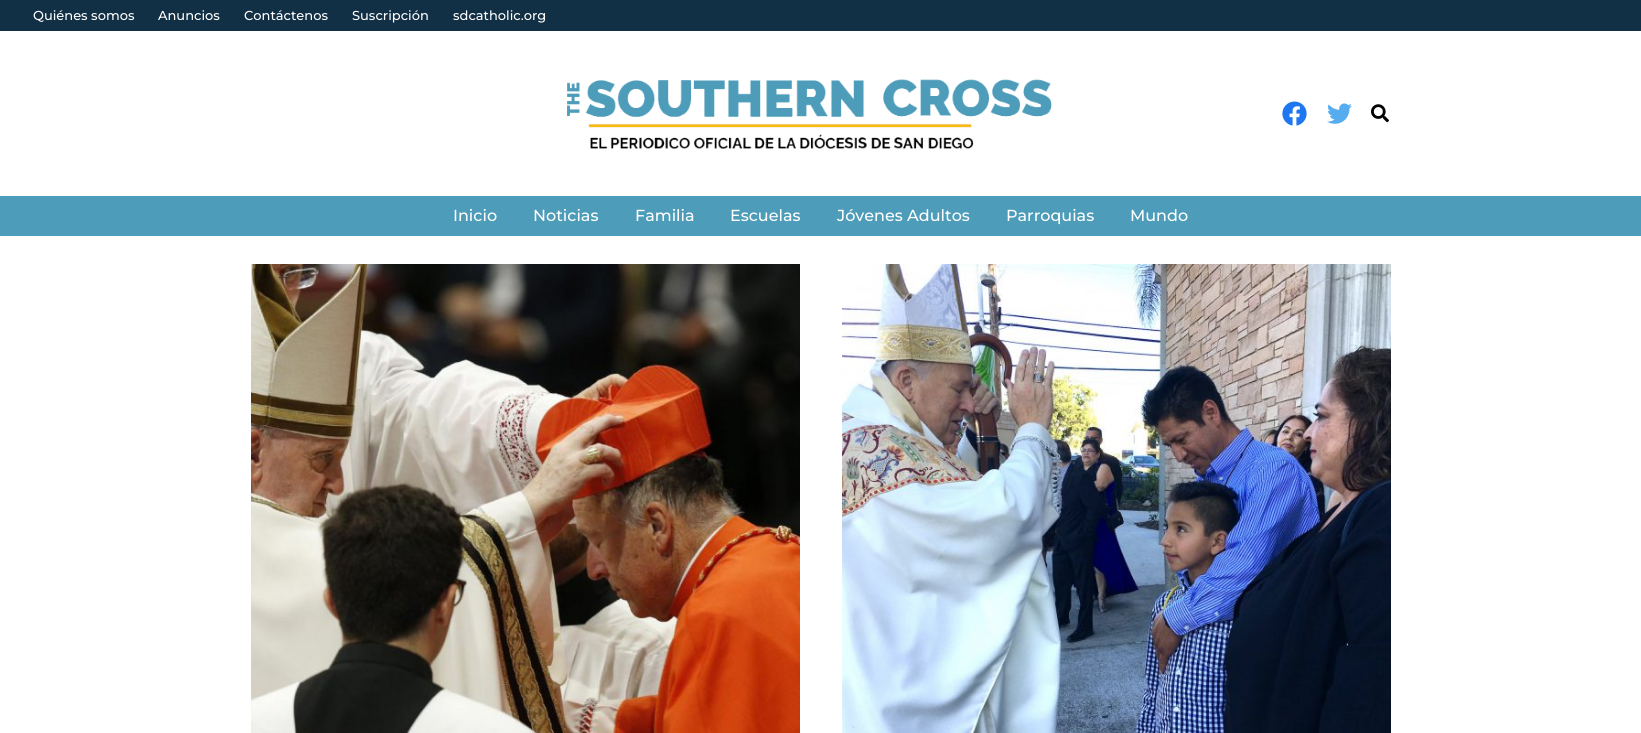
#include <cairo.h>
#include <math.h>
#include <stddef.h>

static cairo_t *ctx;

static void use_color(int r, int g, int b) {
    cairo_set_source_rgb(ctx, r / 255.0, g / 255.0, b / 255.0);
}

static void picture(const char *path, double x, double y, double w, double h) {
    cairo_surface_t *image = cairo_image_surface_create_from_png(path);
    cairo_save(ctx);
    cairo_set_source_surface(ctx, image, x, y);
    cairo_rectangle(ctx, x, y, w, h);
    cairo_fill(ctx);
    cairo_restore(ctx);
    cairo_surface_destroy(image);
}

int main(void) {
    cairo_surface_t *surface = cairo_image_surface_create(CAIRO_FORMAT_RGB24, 1641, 733);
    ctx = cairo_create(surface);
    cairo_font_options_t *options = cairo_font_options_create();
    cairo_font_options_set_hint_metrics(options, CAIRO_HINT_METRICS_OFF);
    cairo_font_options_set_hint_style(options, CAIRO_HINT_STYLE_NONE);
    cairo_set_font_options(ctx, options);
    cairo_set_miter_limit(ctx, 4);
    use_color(255, 255, 255);
    cairo_paint(ctx);
    use_color(17, 47, 69);
    cairo_rectangle(ctx, 0, 0, 1641, 31);
    cairo_fill(ctx);
    cairo_select_font_face(ctx, "Montserrat Thin", CAIRO_FONT_SLANT_NORMAL, CAIRO_FONT_WEIGHT_NORMAL);
    cairo_set_font_size(ctx, 13);
    use_color(255, 255, 255);
    cairo_move_to(ctx, 33, 20);
    cairo_show_text(ctx, "Quiénes somos");
    cairo_move_to(ctx, 158, 20);
    cairo_show_text(ctx, "Anuncios");
    cairo_move_to(ctx, 244, 20);
    cairo_show_text(ctx, "Contáctenos");
    cairo_move_to(ctx, 352, 20);
    cairo_show_text(ctx, "Suscripción");
    cairo_move_to(ctx, 453, 20);
    cairo_show_text(ctx, "sdcatholic.org");
    picture("img1.png", 567, 79, 485, 70);
    picture("img2.png", 1282, 101, 25, 25);
    picture("img3.png", 1327, 103, 25, 21);
    picture("img4.png", 1371, 104, 18, 19);
    use_color(77, 156, 185);
    cairo_rectangle(ctx, 0, 196, 1641, 40);
    cairo_fill(ctx);
    cairo_set_font_size(ctx, 16);
    use_color(255, 255, 255);
    cairo_move_to(ctx, 453, 221);
    cairo_show_text(ctx, "Inicio");
    cairo_move_to(ctx, 533, 221);
    cairo_show_text(ctx, "Noticias");
    cairo_move_to(ctx, 635, 221);
    cairo_show_text(ctx, "Familia");
    cairo_move_to(ctx, 730, 221);
    cairo_show_text(ctx, "Escuelas");
    cairo_move_to(ctx, 837, 221);
    cairo_show_text(ctx, "Jóvenes Adultos");
    cairo_move_to(ctx, 1006, 221);
    cairo_show_text(ctx, "Parroquias");
    cairo_move_to(ctx, 1130, 221);
    cairo_show_text(ctx, "Mundo");
    picture("img5.png", 251, 264, 549, 469);
    picture("img6.png", 842, 264, 549, 469);
    cairo_surface_write_to_png(surface, "result.png");
    cairo_font_options_destroy(options);
    cairo_destroy(ctx);
    cairo_surface_destroy(surface);
    return 0;
}
